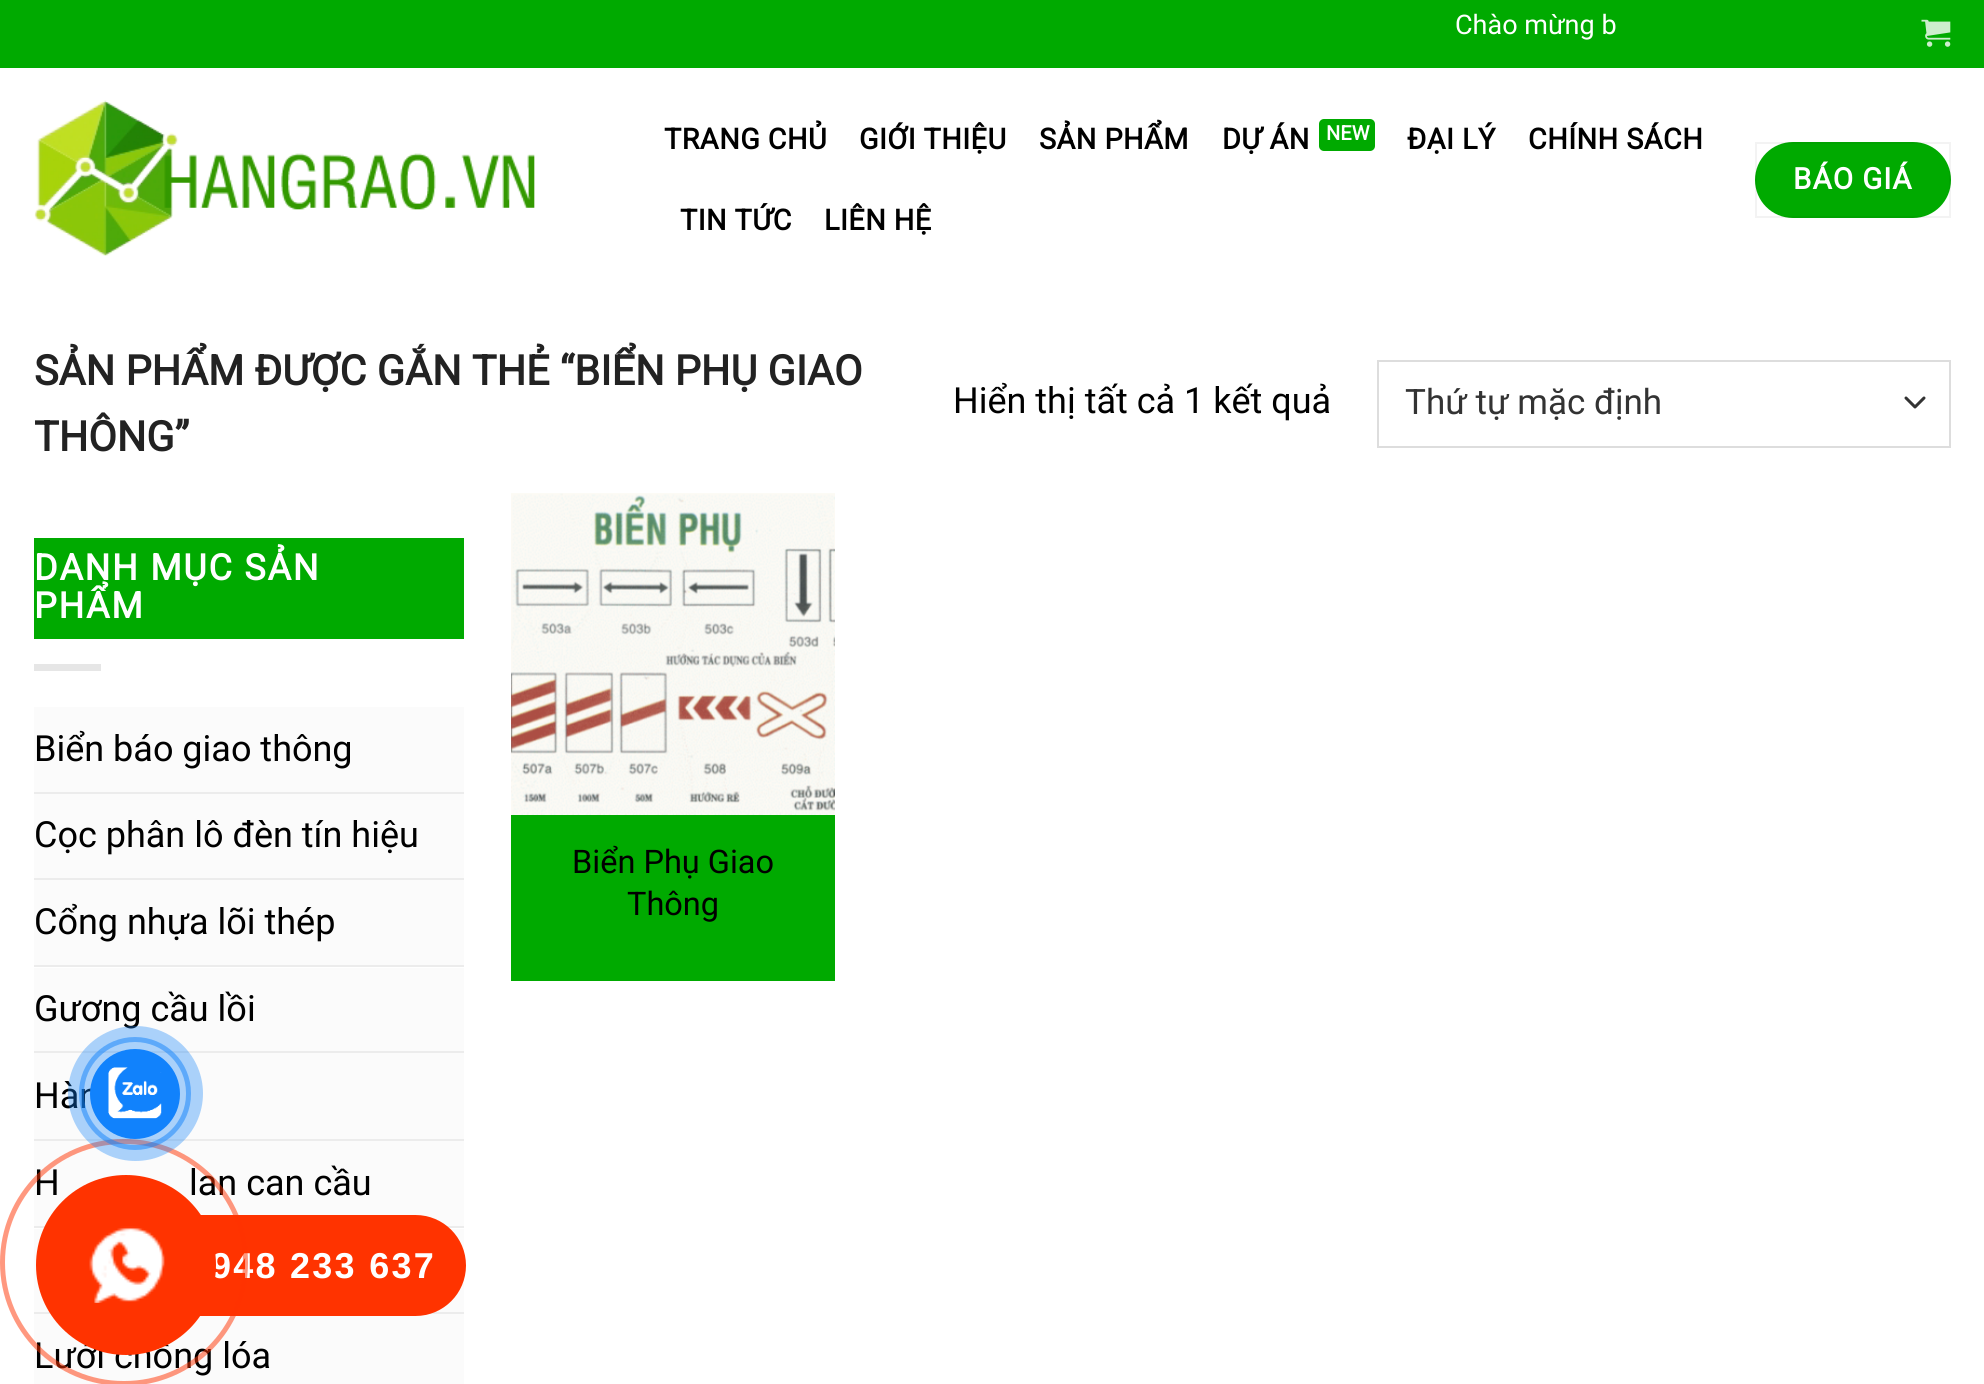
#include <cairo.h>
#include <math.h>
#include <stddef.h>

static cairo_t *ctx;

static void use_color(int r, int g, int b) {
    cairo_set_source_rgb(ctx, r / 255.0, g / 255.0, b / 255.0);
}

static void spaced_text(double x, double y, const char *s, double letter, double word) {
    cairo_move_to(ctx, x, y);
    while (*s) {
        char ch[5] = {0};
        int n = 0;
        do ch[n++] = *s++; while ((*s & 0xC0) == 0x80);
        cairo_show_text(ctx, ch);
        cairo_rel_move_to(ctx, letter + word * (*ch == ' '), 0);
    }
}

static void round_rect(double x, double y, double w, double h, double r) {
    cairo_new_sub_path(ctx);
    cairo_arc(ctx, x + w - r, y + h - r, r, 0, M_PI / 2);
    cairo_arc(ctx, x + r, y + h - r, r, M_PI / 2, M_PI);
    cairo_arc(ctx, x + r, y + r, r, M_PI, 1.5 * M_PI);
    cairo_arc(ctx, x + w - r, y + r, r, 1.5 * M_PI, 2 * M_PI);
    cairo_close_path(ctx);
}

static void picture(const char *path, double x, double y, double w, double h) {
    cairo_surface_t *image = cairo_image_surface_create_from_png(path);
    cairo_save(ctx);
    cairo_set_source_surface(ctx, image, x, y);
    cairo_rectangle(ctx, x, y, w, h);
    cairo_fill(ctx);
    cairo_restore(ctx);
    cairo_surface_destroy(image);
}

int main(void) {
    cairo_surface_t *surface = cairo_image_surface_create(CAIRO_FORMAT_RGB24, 1984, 1384);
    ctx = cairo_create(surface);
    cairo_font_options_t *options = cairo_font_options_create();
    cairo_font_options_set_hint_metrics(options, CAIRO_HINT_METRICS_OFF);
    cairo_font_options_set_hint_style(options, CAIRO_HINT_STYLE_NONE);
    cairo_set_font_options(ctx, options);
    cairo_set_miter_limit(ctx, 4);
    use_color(255, 255, 255);
    cairo_paint(ctx);
    use_color(0, 170, 0);
    cairo_rectangle(ctx, 0, 0, 1984, 68);
    cairo_fill(ctx);
    cairo_select_font_face(ctx, "Roboto", CAIRO_FONT_SLANT_NORMAL, CAIRO_FONT_WEIGHT_NORMAL);
    cairo_set_font_size(ctx, 27);
    use_color(255, 255, 255);
    cairo_move_to(ctx, 1455, 34);
    cairo_show_text(ctx, "Chào mừng b");
    picture("img1.png", 1921, 19, 30, 28);
    picture("img2.png", 34, 100, 501, 156);
    cairo_select_font_face(ctx, "Roboto", CAIRO_FONT_SLANT_NORMAL, CAIRO_FONT_WEIGHT_BOLD);
    cairo_set_font_size(ctx, 28.75);
    use_color(0, 0, 0);
    spaced_text(664, 149, "TRANG CHỦ", 0.5, 0);
    spaced_text(859, 149, "GIỚI THIỆU", 0.5, 0);
    spaced_text(1039, 149, "SẢN PHẨM", 0.5, 0);
    spaced_text(1222, 149, "DỰ ÁN", 0.5, 0);
    use_color(0, 170, 0);
    round_rect(1319, 119, 56, 32, 5);
    cairo_fill(ctx);
    cairo_set_font_size(ctx, 20);
    use_color(255, 255, 255);
    cairo_move_to(ctx, 1326, 140);
    cairo_show_text(ctx, "NEW");
    cairo_set_font_size(ctx, 28.75);
    use_color(0, 0, 0);
    spaced_text(1407, 149, "ĐẠI LÝ", 0.5, 0);
    spaced_text(1528, 149, "CHÍNH SÁCH", 0.5, 0);
    spaced_text(680, 230, "TIN TỨC", 0.5, 0);
    spaced_text(824, 230, "LIÊN HỆ", 0.5, 0);
    use_color(0, 170, 0);
    round_rect(1755, 142, 196, 76, 38);
    cairo_fill(ctx);
    cairo_rectangle(ctx, 1756, 143, 194, 74);
    cairo_set_source_rgba(ctx, 0, 0, 0, 0.05);
    cairo_stroke(ctx);
    cairo_set_font_size(ctx, 29.5);
    use_color(255, 255, 255);
    spaced_text(1793, 189, "BÁO GIÁ", 1, 0);
    cairo_set_font_size(ctx, 41.4);
    use_color(34, 34, 34);
    cairo_move_to(ctx, 34, 385);
    cairo_show_text(ctx, "SẢN PHẨM ĐƯỢC GẮN THẺ “BIỂN PHỤ GIAO");
    cairo_move_to(ctx, 34, 451);
    cairo_show_text(ctx, "THÔNG”");
    cairo_select_font_face(ctx, "Roboto", CAIRO_FONT_SLANT_NORMAL, CAIRO_FONT_WEIGHT_NORMAL);
    cairo_set_font_size(ctx, 36);
    use_color(0, 0, 0);
    cairo_move_to(ctx, 953, 413);
    cairo_show_text(ctx, "Hiển thị tất cả 1 kết quả");
    cairo_new_path(ctx);
    cairo_move_to(ctx, 1906, 398);
    cairo_line_to(ctx, 1915, 407);
    cairo_line_to(ctx, 1924, 398);
    use_color(51, 51, 51);
    cairo_set_line_width(ctx, 3);
    cairo_set_line_cap(ctx, CAIRO_LINE_CAP_ROUND);
    cairo_set_line_join(ctx, CAIRO_LINE_JOIN_ROUND);
    cairo_stroke(ctx);
    cairo_rectangle(ctx, 1378, 361, 572, 86);
    use_color(221, 221, 221);
    cairo_set_line_width(ctx, 2);
    cairo_set_line_cap(ctx, CAIRO_LINE_CAP_BUTT);
    cairo_set_line_join(ctx, CAIRO_LINE_JOIN_MITER);
    cairo_stroke(ctx);
    cairo_set_font_size(ctx, 35);
    use_color(51, 51, 51);
    cairo_move_to(ctx, 1405, 414);
    cairo_show_text(ctx, "Thứ tự mặc định");
    use_color(0, 170, 0);
    cairo_rectangle(ctx, 34, 538, 430, 101);
    cairo_fill(ctx);
    cairo_select_font_face(ctx, "Roboto", CAIRO_FONT_SLANT_NORMAL, CAIRO_FONT_WEIGHT_BOLD);
    cairo_set_font_size(ctx, 36);
    use_color(255, 255, 255);
    spaced_text(34, 580, "DANH MỤC SẢN", 1.75, 0);
    spaced_text(34, 618, "PHẨM", 1.75, 0);
    use_color(230, 230, 230);
    cairo_rectangle(ctx, 34, 664, 67, 7);
    cairo_fill(ctx);
    use_color(251, 251, 251);
    cairo_rectangle(ctx, 34, 707, 430, 85);
    cairo_fill(ctx);
    cairo_select_font_face(ctx, "Roboto", CAIRO_FONT_SLANT_NORMAL, CAIRO_FONT_WEIGHT_NORMAL);
    use_color(0, 0, 0);
    cairo_move_to(ctx, 34, 761);
    cairo_show_text(ctx, "Biển báo giao thông");
    use_color(236, 236, 236);
    cairo_rectangle(ctx, 34, 792, 430, 2);
    cairo_fill(ctx);
    use_color(251, 251, 251);
    cairo_rectangle(ctx, 34, 794, 430, 84);
    cairo_fill(ctx);
    use_color(0, 0, 0);
    cairo_move_to(ctx, 34, 847);
    cairo_show_text(ctx, "Cọc phân lô đèn tín hiệu");
    use_color(236, 236, 236);
    cairo_rectangle(ctx, 34, 878, 430, 2);
    cairo_fill(ctx);
    use_color(251, 251, 251);
    cairo_rectangle(ctx, 34, 880, 430, 85);
    cairo_fill(ctx);
    use_color(0, 0, 0);
    cairo_move_to(ctx, 34, 934);
    cairo_show_text(ctx, "Cổng nhựa lõi thép");
    use_color(236, 236, 236);
    cairo_rectangle(ctx, 34, 965, 430, 2);
    cairo_fill(ctx);
    use_color(251, 251, 251);
    cairo_rectangle(ctx, 34, 968, 430, 83);
    cairo_fill(ctx);
    use_color(0, 0, 0);
    cairo_move_to(ctx, 34, 1021);
    cairo_show_text(ctx, "Gương cầu lồi");
    use_color(236, 236, 236);
    cairo_rectangle(ctx, 34, 1051, 430, 2);
    cairo_fill(ctx);
    use_color(251, 251, 251);
    cairo_rectangle(ctx, 34, 1053, 430, 86);
    cairo_fill(ctx);
    use_color(0, 0, 0);
    cairo_move_to(ctx, 34, 1108);
    cairo_show_text(ctx, "Hàn");
    use_color(236, 236, 236);
    cairo_rectangle(ctx, 34, 1139, 430, 2);
    cairo_fill(ctx);
    use_color(251, 251, 251);
    cairo_rectangle(ctx, 34, 1141, 430, 85);
    cairo_fill(ctx);
    use_color(0, 0, 0);
    cairo_move_to(ctx, 34, 1195);
    cairo_show_text(ctx, "H");
    cairo_move_to(ctx, 189, 1195);
    cairo_show_text(ctx, "lan can cầu");
    use_color(236, 236, 236);
    cairo_rectangle(ctx, 34, 1226, 430, 2);
    cairo_fill(ctx);
    use_color(251, 251, 251);
    cairo_rectangle(ctx, 34, 1229, 430, 83);
    cairo_fill(ctx);
    use_color(236, 236, 236);
    cairo_rectangle(ctx, 34, 1312, 430, 2);
    cairo_fill(ctx);
    use_color(251, 251, 251);
    cairo_rectangle(ctx, 34, 1314, 430, 70);
    cairo_fill(ctx);
    use_color(0, 0, 0);
    cairo_move_to(ctx, 34, 1368);
    cairo_show_text(ctx, "Lưới chống lóa");
    picture("img3.png", 511, 493, 324, 322);
    use_color(0, 170, 0);
    cairo_rectangle(ctx, 511, 815, 324, 166);
    cairo_fill(ctx);
    cairo_set_font_size(ctx, 32.5);
    use_color(0, 0, 0);
    cairo_move_to(ctx, 572, 873);
    cairo_show_text(ctx, "Biển Phụ Giao");
    cairo_move_to(ctx, 627, 915);
    cairo_show_text(ctx, "Thông");
    use_color(255, 51, 0);
    round_rect(95, 1215, 371, 101, 50.5);
    cairo_fill(ctx);
    cairo_select_font_face(ctx, "Liberation Sans", CAIRO_FONT_SLANT_NORMAL, CAIRO_FONT_WEIGHT_BOLD);
    cairo_set_font_size(ctx, 36);
    use_color(255, 255, 255);
    spaced_text(211, 1278, "948 233 637", 2.25, 0);
    round_rect(2.5, 1141.5, 243, 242, 121);
    cairo_set_source_rgba(ctx, 1, 0.2, 0, 0.5);
    cairo_set_line_width(ctx, 5);
    cairo_stroke(ctx);
    round_rect(81.5, 1039.5, 107, 108, 53.5);
    cairo_set_source_rgba(ctx, 0.067, 0.51, 0.988, 0.5);
    cairo_stroke(ctx);
    cairo_set_source_rgba(ctx, 0.067, 0.51, 0.988, 0.34);
    cairo_arc(ctx, 135.5, 1093.5, 67.5, 0, 2 * M_PI);
    cairo_fill(ctx);
    use_color(17, 130, 252);
    cairo_arc(ctx, 135, 1094, 45, 0, 2 * M_PI);
    cairo_fill(ctx);
    picture("img4.png", 108, 1067, 54, 52);
    use_color(255, 51, 0);
    cairo_arc(ctx, 126, 1265, 90, 0, 2 * M_PI);
    cairo_fill(ctx);
    picture("img5.png", 89, 1226, 76, 77);
    cairo_surface_write_to_png(surface, "result.png");
    cairo_font_options_destroy(options);
    cairo_destroy(ctx);
    cairo_surface_destroy(surface);
    return 0;
}
